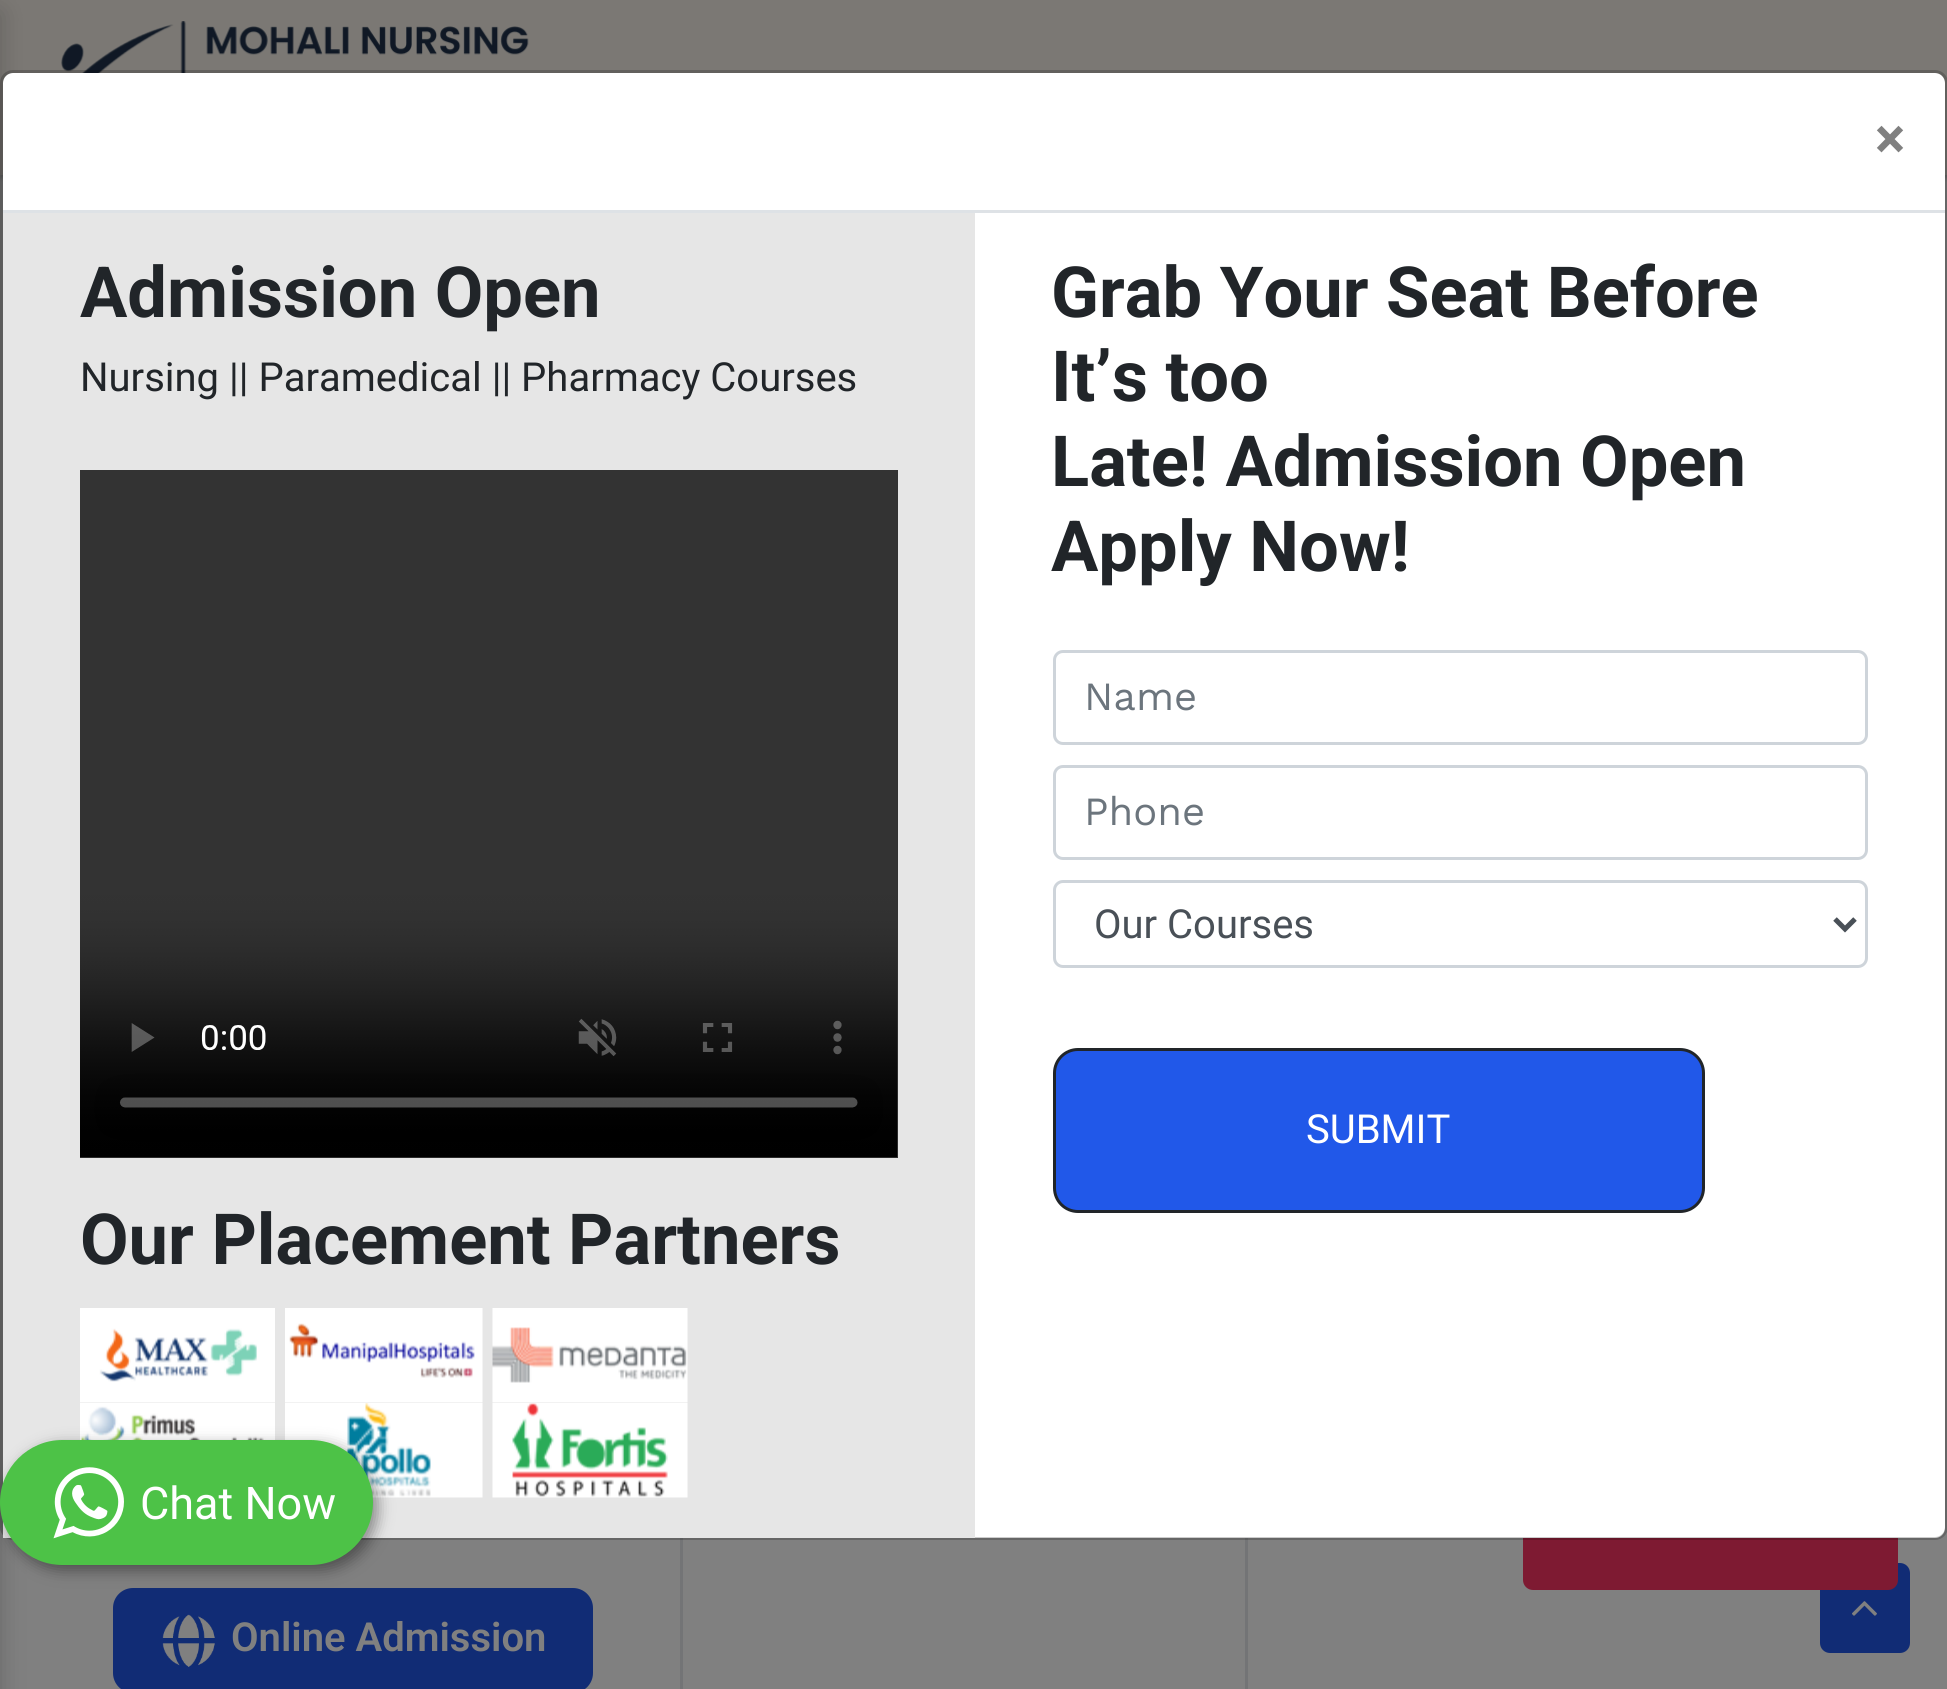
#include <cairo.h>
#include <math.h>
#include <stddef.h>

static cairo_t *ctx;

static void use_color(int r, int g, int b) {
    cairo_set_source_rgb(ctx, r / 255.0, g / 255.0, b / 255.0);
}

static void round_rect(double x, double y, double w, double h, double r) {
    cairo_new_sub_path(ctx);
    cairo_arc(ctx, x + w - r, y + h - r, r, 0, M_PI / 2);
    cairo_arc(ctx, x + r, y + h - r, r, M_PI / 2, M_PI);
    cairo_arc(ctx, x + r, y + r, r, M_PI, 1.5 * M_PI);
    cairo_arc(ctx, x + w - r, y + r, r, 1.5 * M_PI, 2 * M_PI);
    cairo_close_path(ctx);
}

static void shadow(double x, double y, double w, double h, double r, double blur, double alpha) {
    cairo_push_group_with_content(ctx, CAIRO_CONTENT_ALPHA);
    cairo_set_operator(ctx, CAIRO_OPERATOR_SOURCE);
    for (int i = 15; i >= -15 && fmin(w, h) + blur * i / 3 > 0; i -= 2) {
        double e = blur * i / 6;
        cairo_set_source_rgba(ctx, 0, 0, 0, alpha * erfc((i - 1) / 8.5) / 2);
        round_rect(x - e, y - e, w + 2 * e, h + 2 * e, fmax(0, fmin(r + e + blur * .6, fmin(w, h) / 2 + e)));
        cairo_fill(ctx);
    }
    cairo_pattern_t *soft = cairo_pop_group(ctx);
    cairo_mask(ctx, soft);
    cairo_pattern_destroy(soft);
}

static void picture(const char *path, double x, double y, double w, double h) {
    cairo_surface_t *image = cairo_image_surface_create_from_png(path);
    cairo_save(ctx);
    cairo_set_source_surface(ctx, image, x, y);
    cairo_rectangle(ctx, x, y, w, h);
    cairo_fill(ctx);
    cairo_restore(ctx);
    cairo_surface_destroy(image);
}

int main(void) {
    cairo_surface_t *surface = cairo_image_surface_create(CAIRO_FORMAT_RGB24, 1947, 1689);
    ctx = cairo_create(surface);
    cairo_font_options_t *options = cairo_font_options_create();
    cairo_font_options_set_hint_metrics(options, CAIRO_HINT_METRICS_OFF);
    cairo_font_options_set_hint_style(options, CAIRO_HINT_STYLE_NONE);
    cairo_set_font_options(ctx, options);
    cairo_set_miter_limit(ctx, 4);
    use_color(128, 128, 128);
    cairo_paint(ctx);
    use_color(0, 0, 0);
    shadow(0, 3, 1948, 175, 0, 2.5, 0.2);
    use_color(123, 120, 116);
    cairo_rectangle(ctx, 0, 0, 1947, 175);
    cairo_fill(ctx);
    use_color(0, 0, 0);
    shadow(-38, 13, 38, 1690, 0, 12.5, 0.2);
    picture("img1.png", 61, 21, 468, 52);
    use_color(17, 44, 117);
    round_rect(1820, 1563, 90, 90, 10);
    cairo_fill(ctx);
    use_color(126, 26, 50);
    round_rect(1523, 1435, 375, 155, 10);
    cairo_fill(ctx);
    use_color(255, 255, 255);
    round_rect(3, 73, 1942, 1465, 10);
    cairo_fill(ctx);
    use_color(115, 116, 118);
    cairo_rectangle(ctx, 680, 1538, 3, 151);
    cairo_fill(ctx);
    cairo_rectangle(ctx, 1245, 1538, 3, 151);
    cairo_fill(ctx);
    round_rect(1.5, 71.5, 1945, 1467, 11.5);
    cairo_set_source_rgba(ctx, 0, 0, 0, 0.2);
    cairo_set_line_width(ctx, 3);
    cairo_stroke(ctx);
    use_color(222, 226, 230);
    cairo_rectangle(ctx, 3, 210, 1942, 3);
    cairo_fill(ctx);
    cairo_select_font_face(ctx, "Roboto", CAIRO_FONT_SLANT_NORMAL, CAIRO_FONT_WEIGHT_BOLD);
    cairo_set_font_size(ctx, 57);
    use_color(128, 128, 128);
    cairo_move_to(ctx, 1875, 158);
    cairo_show_text(ctx, "×");
    use_color(230, 230, 230);
    cairo_rectangle(ctx, 3, 213, 972, 1325);
    cairo_fill(ctx);
    cairo_set_font_size(ctx, 70.5);
    use_color(33, 37, 41);
    cairo_move_to(ctx, 80, 317);
    cairo_show_text(ctx, "Admission Open");
    cairo_select_font_face(ctx, "Roboto", CAIRO_FONT_SLANT_NORMAL, CAIRO_FONT_WEIGHT_NORMAL);
    cairo_set_font_size(ctx, 40);
    cairo_move_to(ctx, 80, 391);
    cairo_show_text(ctx, "Nursing || Paramedical || Pharmacy Courses");
    picture("img2.png", 80, 470, 818, 688);
    cairo_select_font_face(ctx, "Roboto", CAIRO_FONT_SLANT_NORMAL, CAIRO_FONT_WEIGHT_BOLD);
    cairo_set_font_size(ctx, 70.5);
    cairo_move_to(ctx, 80, 1264);
    cairo_show_text(ctx, "Our Placement Partners");
    picture("img3.png", 80, 1308, 195, 95);
    picture("img4.png", 285, 1308, 198, 95);
    picture("img5.png", 492, 1308, 196, 95);
    picture("img6.png", 80, 1403, 195, 37);
    picture("img7.png", 285, 1403, 198, 95);
    picture("img8.png", 492, 1403, 196, 95);
    cairo_move_to(ctx, 1051, 317);
    cairo_show_text(ctx, "Grab Your Seat Before");
    cairo_move_to(ctx, 1051, 401);
    cairo_show_text(ctx, "It’s too");
    cairo_move_to(ctx, 1051, 486);
    cairo_show_text(ctx, "Late! Admission Open");
    cairo_move_to(ctx, 1051, 571);
    cairo_show_text(ctx, "Apply Now!");
    round_rect(1054.5, 651.5, 812, 92, 8.5);
    use_color(206, 212, 218);
    cairo_stroke(ctx);
    cairo_select_font_face(ctx, "Work Sans", CAIRO_FONT_SLANT_NORMAL, CAIRO_FONT_WEIGHT_NORMAL);
    cairo_set_font_size(ctx, 40);
    use_color(108, 117, 125);
    cairo_move_to(ctx, 1084, 710);
    cairo_show_text(ctx, "Name");
    round_rect(1054.5, 766.5, 812, 92, 8.5);
    use_color(206, 212, 218);
    cairo_stroke(ctx);
    use_color(108, 117, 125);
    cairo_move_to(ctx, 1084, 825);
    cairo_show_text(ctx, "Phone");
    round_rect(1054.5, 881.5, 812, 85, 8.5);
    use_color(206, 212, 218);
    cairo_stroke(ctx);
    cairo_new_path(ctx);
    cairo_move_to(ctx, 1835, 919);
    cairo_line_to(ctx, 1845, 929);
    cairo_line_to(ctx, 1855, 919);
    use_color(73, 80, 87);
    cairo_set_line_width(ctx, 5);
    cairo_stroke(ctx);
    cairo_select_font_face(ctx, "Roboto", CAIRO_FONT_SLANT_NORMAL, CAIRO_FONT_WEIGHT_NORMAL);
    cairo_move_to(ctx, 1094, 938);
    cairo_show_text(ctx, "Our Courses");
    use_color(33, 88, 233);
    round_rect(1054.5, 1049.5, 649, 162, 23.5);
    cairo_fill_preserve(ctx);
    use_color(33, 37, 41);
    cairo_set_line_width(ctx, 3);
    cairo_stroke(ctx);
    use_color(255, 255, 255);
    cairo_move_to(ctx, 1306, 1143);
    cairo_show_text(ctx, "SUBMIT");
    use_color(17, 44, 117);
    round_rect(115.5, 1590.5, 475, 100, 17.5);
    cairo_fill_preserve(ctx);
    cairo_set_line_width(ctx, 5);
    cairo_stroke(ctx);
    use_color(0, 0, 0);
    shadow(5, 1445, 373, 125, 62.5, 7.5, 0.4);
    use_color(77, 194, 71);
    round_rect(0, 1440, 373, 125, 62.5);
    cairo_fill(ctx);
    picture("img9.png", 53, 1467, 71, 72);
    cairo_set_font_size(ctx, 45);
    use_color(255, 255, 255);
    cairo_move_to(ctx, 140, 1519);
    cairo_show_text(ctx, "Chat Now");
    picture("img10.png", 162, 1614, 53, 53);
    cairo_select_font_face(ctx, "Roboto SemiBold", CAIRO_FONT_SLANT_NORMAL, CAIRO_FONT_WEIGHT_NORMAL);
    cairo_set_font_size(ctx, 40);
    use_color(128, 128, 128);
    cairo_move_to(ctx, 231, 1651);
    cairo_show_text(ctx, "Online Admission");
    picture("img11.png", 1852, 1601, 25, 15);
    cairo_surface_write_to_png(surface, "result.png");
    cairo_font_options_destroy(options);
    cairo_destroy(ctx);
    cairo_surface_destroy(surface);
    return 0;
}
